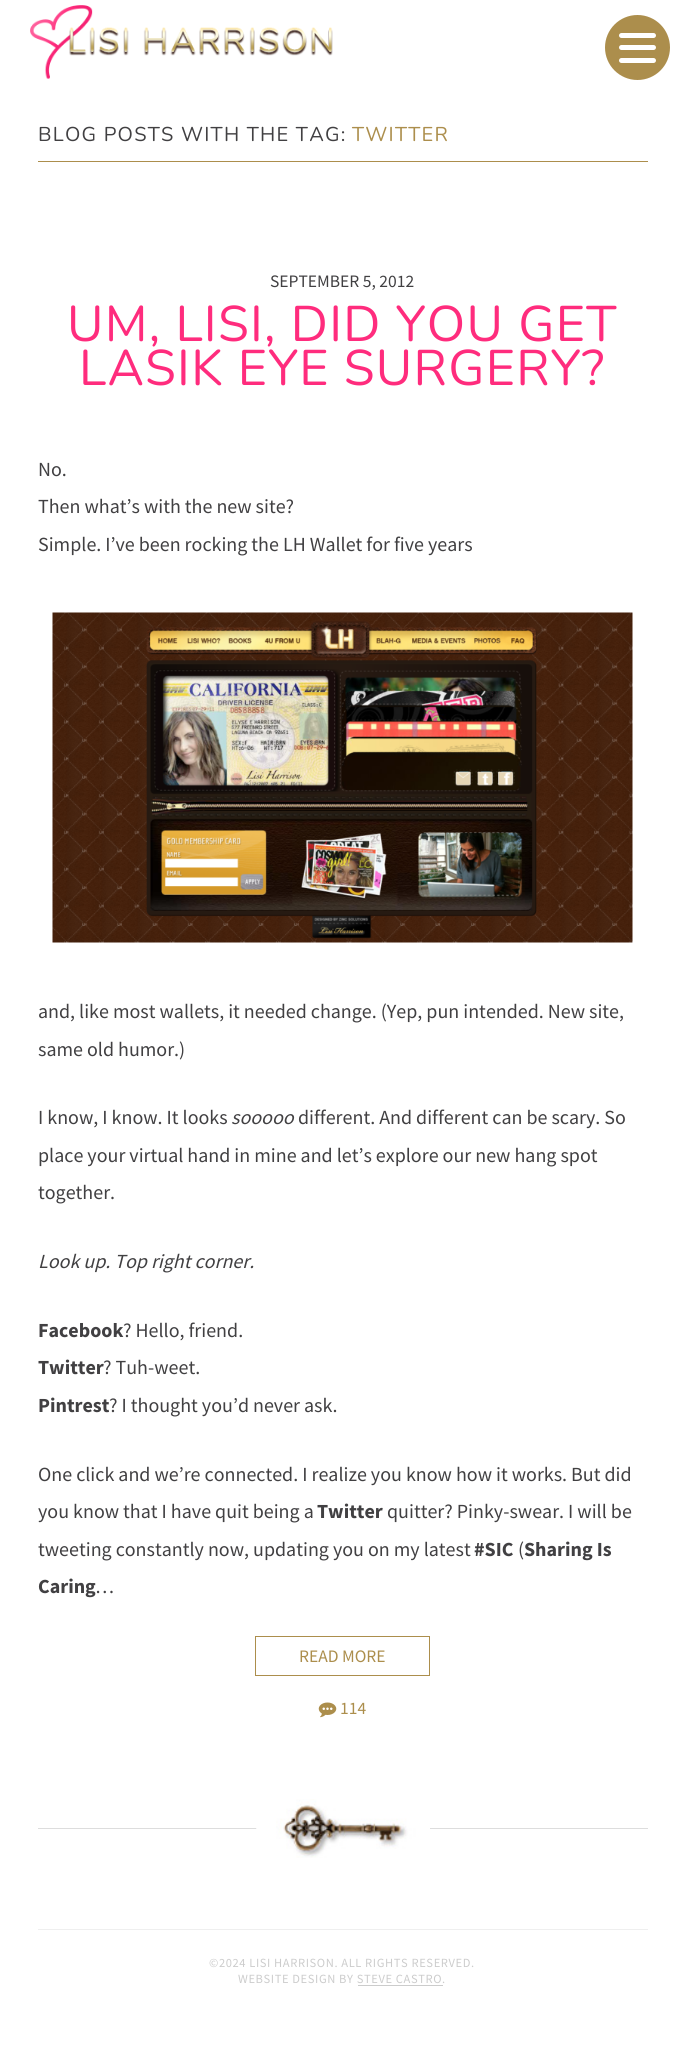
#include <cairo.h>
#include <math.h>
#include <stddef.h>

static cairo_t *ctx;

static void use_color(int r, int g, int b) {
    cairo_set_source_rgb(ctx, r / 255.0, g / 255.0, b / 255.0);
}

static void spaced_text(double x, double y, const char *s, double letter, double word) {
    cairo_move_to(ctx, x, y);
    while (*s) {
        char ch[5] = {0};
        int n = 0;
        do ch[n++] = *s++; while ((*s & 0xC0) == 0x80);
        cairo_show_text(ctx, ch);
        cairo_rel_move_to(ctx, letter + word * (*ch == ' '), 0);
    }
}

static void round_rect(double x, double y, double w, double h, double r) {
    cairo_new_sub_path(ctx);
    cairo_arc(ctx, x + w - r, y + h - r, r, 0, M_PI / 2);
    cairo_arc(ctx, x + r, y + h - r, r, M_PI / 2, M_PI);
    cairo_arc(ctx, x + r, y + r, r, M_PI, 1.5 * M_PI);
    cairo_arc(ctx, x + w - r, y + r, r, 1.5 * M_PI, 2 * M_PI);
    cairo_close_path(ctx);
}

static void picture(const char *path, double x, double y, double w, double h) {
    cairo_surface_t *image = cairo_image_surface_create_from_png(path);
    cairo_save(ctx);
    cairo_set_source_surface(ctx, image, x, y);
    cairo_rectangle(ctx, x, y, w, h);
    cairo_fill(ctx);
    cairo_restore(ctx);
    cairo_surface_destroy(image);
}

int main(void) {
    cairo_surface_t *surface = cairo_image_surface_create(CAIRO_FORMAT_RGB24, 685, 2060);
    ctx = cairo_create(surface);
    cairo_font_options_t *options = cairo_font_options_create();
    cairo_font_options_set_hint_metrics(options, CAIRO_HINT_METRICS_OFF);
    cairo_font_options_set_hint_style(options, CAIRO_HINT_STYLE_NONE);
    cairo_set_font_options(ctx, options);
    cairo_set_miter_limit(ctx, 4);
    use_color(255, 255, 255);
    cairo_paint(ctx);
    use_color(172, 142, 76);
    cairo_arc(ctx, 637.5, 47.5, 32.5, 0, 2 * M_PI);
    cairo_fill(ctx);
    use_color(255, 255, 255);
    round_rect(619, 33, 37, 5, 2.5);
    cairo_fill(ctx);
    round_rect(619, 45, 37, 5, 2.5);
    cairo_fill(ctx);
    round_rect(619, 58, 37, 5, 2.5);
    cairo_fill(ctx);
    picture("img1.png", 30, 5, 303, 74);
    use_color(172, 142, 76);
    cairo_rectangle(ctx, 38, 161, 610, 1);
    cairo_fill(ctx);
    cairo_select_font_face(ctx, "Nunito ExtraLight", CAIRO_FONT_SLANT_NORMAL, CAIRO_FONT_WEIGHT_NORMAL);
    cairo_set_font_size(ctx, 20);
    use_color(65, 64, 66);
    spaced_text(38, 141, "BLOG POSTS WITH THE TAG:", 1.25, 0);
    use_color(172, 142, 76);
    spaced_text(352, 141, "TWITTER", 1.25, 0);
    cairo_select_font_face(ctx, "Source Sans Pro", CAIRO_FONT_SLANT_NORMAL, CAIRO_FONT_WEIGHT_NORMAL);
    cairo_set_font_size(ctx, 17.5);
    use_color(65, 64, 66);
    cairo_move_to(ctx, 270, 287);
    cairo_show_text(ctx, "SEPTEMBER 5, 2012");
    cairo_select_font_face(ctx, "Nunito ExtraLight", CAIRO_FONT_SLANT_NORMAL, CAIRO_FONT_WEIGHT_NORMAL);
    cairo_set_font_size(ctx, 50);
    use_color(255, 44, 125);
    spaced_text(67, 341, "UM, LISI, DID YOU GET", 1.25, 0);
    spaced_text(79, 385, "LASIK EYE SURGERY?", 1.25, 0);
    cairo_select_font_face(ctx, "Source Sans Pro", CAIRO_FONT_SLANT_NORMAL, CAIRO_FONT_WEIGHT_NORMAL);
    cairo_set_font_size(ctx, 20);
    use_color(65, 64, 66);
    cairo_move_to(ctx, 38, 476);
    cairo_show_text(ctx, "No.");
    cairo_move_to(ctx, 38, 513);
    cairo_show_text(ctx, "Then what’s with the new site?");
    cairo_move_to(ctx, 38, 551);
    cairo_show_text(ctx, "Simple. I’ve been rocking the LH Wallet for five years");
    picture("img2.png", 52, 612, 581, 331);
    cairo_move_to(ctx, 38, 1018);
    cairo_show_text(ctx, "and, like most wallets, it needed change. (Yep, pun intended. New site,");
    cairo_move_to(ctx, 38, 1056);
    cairo_show_text(ctx, "same old humor.)");
    cairo_move_to(ctx, 38, 1124);
    cairo_show_text(ctx, "I know, I know. It looks");
    cairo_select_font_face(ctx, "Source Sans Pro", CAIRO_FONT_SLANT_ITALIC, CAIRO_FONT_WEIGHT_NORMAL);
    cairo_move_to(ctx, 231, 1124);
    cairo_show_text(ctx, "sooooo");
    cairo_select_font_face(ctx, "Source Sans Pro", CAIRO_FONT_SLANT_NORMAL, CAIRO_FONT_WEIGHT_NORMAL);
    cairo_move_to(ctx, 298, 1124);
    cairo_show_text(ctx, "different. And different can be scary. So");
    cairo_move_to(ctx, 38, 1162);
    cairo_show_text(ctx, "place your virtual hand in mine and let’s explore our new hang spot");
    cairo_move_to(ctx, 38, 1199);
    cairo_show_text(ctx, "together.");
    cairo_select_font_face(ctx, "Source Sans Pro", CAIRO_FONT_SLANT_ITALIC, CAIRO_FONT_WEIGHT_NORMAL);
    cairo_move_to(ctx, 38, 1268);
    cairo_show_text(ctx, "Look up. Top right corner.");
    cairo_select_font_face(ctx, "Source Sans Pro", CAIRO_FONT_SLANT_NORMAL, CAIRO_FONT_WEIGHT_BOLD);
    cairo_move_to(ctx, 38, 1337);
    cairo_show_text(ctx, "Facebook");
    cairo_select_font_face(ctx, "Source Sans Pro", CAIRO_FONT_SLANT_NORMAL, CAIRO_FONT_WEIGHT_NORMAL);
    cairo_move_to(ctx, 123, 1337);
    cairo_show_text(ctx, "? Hello, friend.");
    cairo_select_font_face(ctx, "Source Sans Pro", CAIRO_FONT_SLANT_NORMAL, CAIRO_FONT_WEIGHT_BOLD);
    cairo_move_to(ctx, 38, 1374);
    cairo_show_text(ctx, "Twitter");
    cairo_select_font_face(ctx, "Source Sans Pro", CAIRO_FONT_SLANT_NORMAL, CAIRO_FONT_WEIGHT_NORMAL);
    cairo_move_to(ctx, 103, 1374);
    cairo_show_text(ctx, "? Tuh-weet.");
    cairo_select_font_face(ctx, "Source Sans Pro", CAIRO_FONT_SLANT_NORMAL, CAIRO_FONT_WEIGHT_BOLD);
    cairo_move_to(ctx, 38, 1412);
    cairo_show_text(ctx, "Pintrest");
    cairo_select_font_face(ctx, "Source Sans Pro", CAIRO_FONT_SLANT_NORMAL, CAIRO_FONT_WEIGHT_NORMAL);
    cairo_move_to(ctx, 109, 1412);
    cairo_show_text(ctx, "? I thought you’d never ask.");
    cairo_move_to(ctx, 38, 1481);
    cairo_show_text(ctx, "One click and we’re connected. I realize you know how it works. But did");
    cairo_move_to(ctx, 38, 1518);
    cairo_show_text(ctx, "you know that I have quit being a");
    cairo_select_font_face(ctx, "Source Sans Pro", CAIRO_FONT_SLANT_NORMAL, CAIRO_FONT_WEIGHT_BOLD);
    cairo_move_to(ctx, 317, 1518);
    cairo_show_text(ctx, "Twitter");
    cairo_select_font_face(ctx, "Source Sans Pro", CAIRO_FONT_SLANT_NORMAL, CAIRO_FONT_WEIGHT_NORMAL);
    cairo_move_to(ctx, 387, 1518);
    cairo_show_text(ctx, "quitter? Pinky-swear. I will be");
    cairo_move_to(ctx, 38, 1556);
    cairo_show_text(ctx, "tweeting constantly now, updating you on my latest");
    cairo_select_font_face(ctx, "Source Sans Pro", CAIRO_FONT_SLANT_NORMAL, CAIRO_FONT_WEIGHT_BOLD);
    cairo_move_to(ctx, 474, 1556);
    cairo_show_text(ctx, "#SIC");
    cairo_select_font_face(ctx, "Source Sans Pro", CAIRO_FONT_SLANT_NORMAL, CAIRO_FONT_WEIGHT_NORMAL);
    cairo_move_to(ctx, 518, 1556);
    cairo_show_text(ctx, "(");
    cairo_select_font_face(ctx, "Source Sans Pro", CAIRO_FONT_SLANT_NORMAL, CAIRO_FONT_WEIGHT_BOLD);
    cairo_move_to(ctx, 524, 1556);
    cairo_show_text(ctx, "Sharing Is");
    cairo_move_to(ctx, 38, 1593);
    cairo_show_text(ctx, "Caring");
    cairo_select_font_face(ctx, "Source Sans Pro", CAIRO_FONT_SLANT_NORMAL, CAIRO_FONT_WEIGHT_NORMAL);
    cairo_move_to(ctx, 95, 1593);
    cairo_show_text(ctx, "…");
    cairo_rectangle(ctx, 255.5, 1636.5, 174, 39);
    use_color(172, 142, 76);
    cairo_set_line_width(ctx, 1);
    cairo_stroke(ctx);
    cairo_set_font_size(ctx, 17.5);
    cairo_move_to(ctx, 299, 1662);
    cairo_show_text(ctx, "READ MORE");
    picture("img3.png", 318, 1702, 19, 16);
    cairo_move_to(ctx, 340, 1714);
    cairo_show_text(ctx, "114");
    use_color(221, 221, 221);
    cairo_rectangle(ctx, 38, 1828, 610, 1);
    cairo_fill(ctx);
    picture("img4.png", 256, 1799, 174, 59);
    use_color(239, 239, 239);
    cairo_rectangle(ctx, 38, 1929, 610, 1);
    cairo_fill(ctx);
    cairo_set_font_size(ctx, 12.5);
    use_color(204, 204, 204);
    spaced_text(209, 1967, "©2024 LISI HARRISON. ALL RIGHTS RESERVED.", 0.6, 0);
    spaced_text(238, 1983, "WEBSITE DESIGN BY STEVE CASTRO.", 0.6, 0);
    cairo_rectangle(ctx, 358, 1985, 85, 1);
    cairo_fill(ctx);
    cairo_surface_write_to_png(surface, "result.png");
    cairo_font_options_destroy(options);
    cairo_destroy(ctx);
    cairo_surface_destroy(surface);
    return 0;
}
